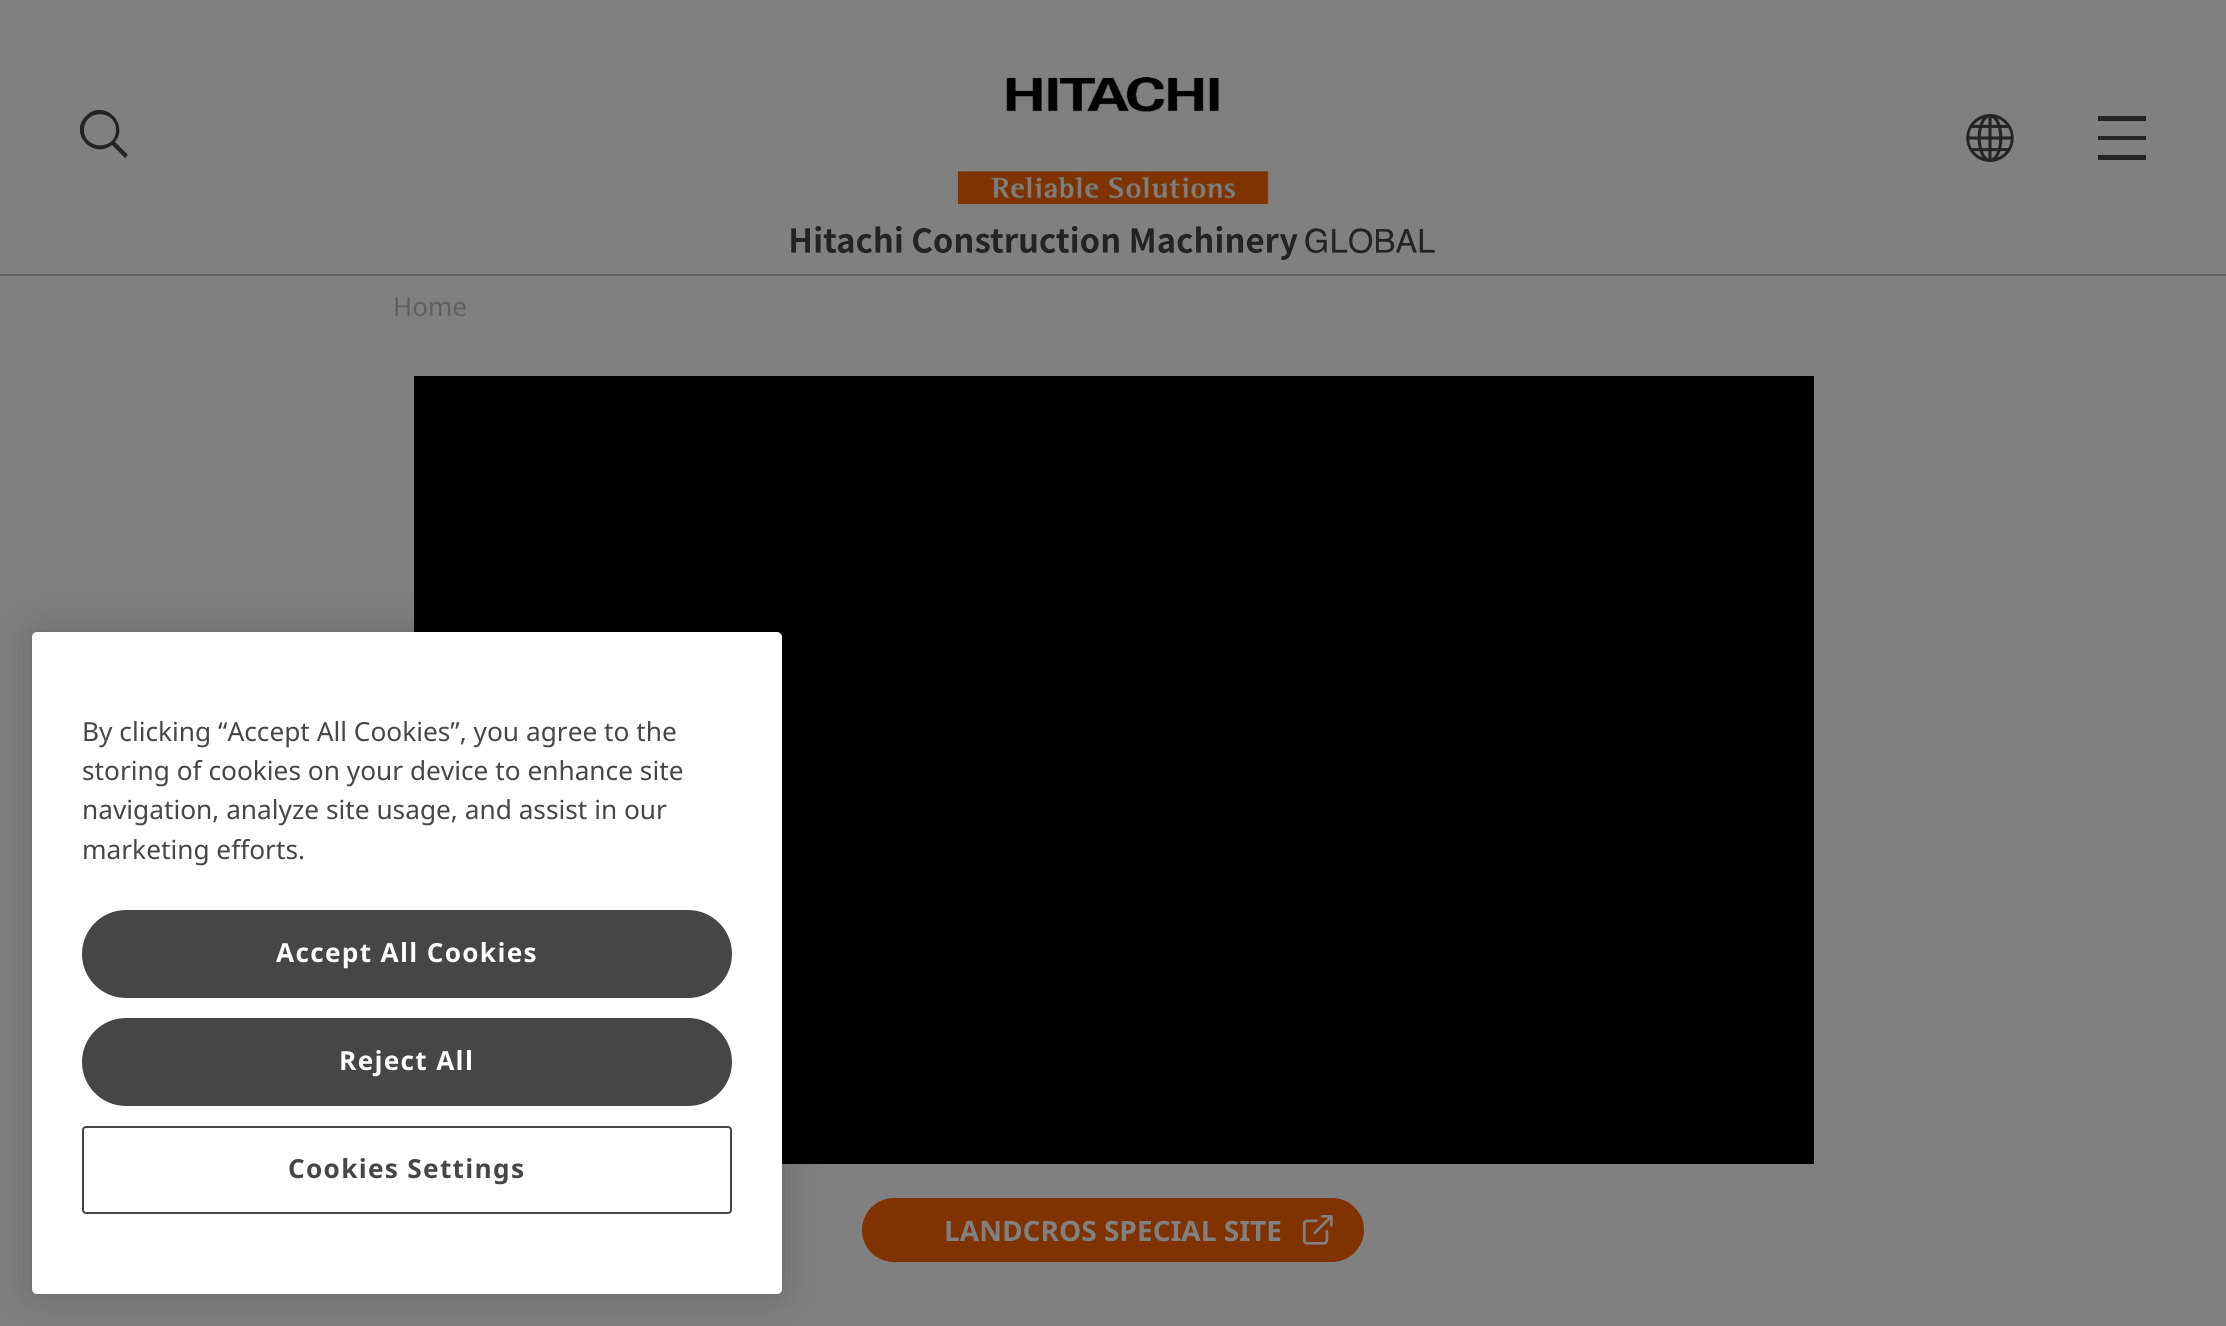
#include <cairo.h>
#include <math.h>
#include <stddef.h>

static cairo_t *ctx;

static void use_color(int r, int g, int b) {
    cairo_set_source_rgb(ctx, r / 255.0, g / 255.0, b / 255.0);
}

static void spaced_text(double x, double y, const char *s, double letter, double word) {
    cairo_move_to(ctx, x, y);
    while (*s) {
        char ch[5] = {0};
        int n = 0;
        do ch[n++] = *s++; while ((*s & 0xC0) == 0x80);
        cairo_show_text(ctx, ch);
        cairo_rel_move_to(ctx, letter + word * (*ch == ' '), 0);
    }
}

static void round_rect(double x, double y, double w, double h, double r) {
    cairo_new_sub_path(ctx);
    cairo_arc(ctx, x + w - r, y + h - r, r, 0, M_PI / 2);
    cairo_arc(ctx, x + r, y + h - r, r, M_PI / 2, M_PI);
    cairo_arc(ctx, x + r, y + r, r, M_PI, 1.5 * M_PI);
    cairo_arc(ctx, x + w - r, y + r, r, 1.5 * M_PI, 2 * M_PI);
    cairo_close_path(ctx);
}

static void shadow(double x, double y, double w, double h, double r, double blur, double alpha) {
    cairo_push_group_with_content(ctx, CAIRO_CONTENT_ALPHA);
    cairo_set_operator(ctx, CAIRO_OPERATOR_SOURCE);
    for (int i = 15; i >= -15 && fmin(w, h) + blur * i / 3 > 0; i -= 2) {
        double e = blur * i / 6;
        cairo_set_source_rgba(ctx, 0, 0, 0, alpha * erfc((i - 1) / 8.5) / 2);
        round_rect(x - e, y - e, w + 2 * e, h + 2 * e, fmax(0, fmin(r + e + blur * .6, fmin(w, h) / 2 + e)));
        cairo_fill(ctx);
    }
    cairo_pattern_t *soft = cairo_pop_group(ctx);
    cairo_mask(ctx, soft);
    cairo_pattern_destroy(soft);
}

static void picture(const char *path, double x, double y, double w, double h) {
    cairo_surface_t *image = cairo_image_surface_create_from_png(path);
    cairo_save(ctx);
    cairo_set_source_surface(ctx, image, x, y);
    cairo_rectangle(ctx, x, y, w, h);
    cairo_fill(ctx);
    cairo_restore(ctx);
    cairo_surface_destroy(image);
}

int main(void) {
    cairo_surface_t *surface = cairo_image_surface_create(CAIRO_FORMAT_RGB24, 2226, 1326);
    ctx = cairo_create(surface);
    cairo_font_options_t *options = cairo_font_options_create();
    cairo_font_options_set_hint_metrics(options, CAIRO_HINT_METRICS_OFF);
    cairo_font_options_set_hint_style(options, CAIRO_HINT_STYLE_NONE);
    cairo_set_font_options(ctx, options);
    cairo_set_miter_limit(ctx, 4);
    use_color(128, 128, 128);
    cairo_paint(ctx);
    use_color(0, 0, 0);
    cairo_rectangle(ctx, 414, 376, 1400, 788);
    cairo_fill(ctx);
    use_color(0, 0, 0);
    shadow(32, 632, 750, 662, 5, 18, 0.2);
    use_color(255, 255, 255);
    round_rect(32, 632, 750, 662, 5);
    cairo_fill(ctx);
    cairo_select_font_face(ctx, "Noto Sans", CAIRO_FONT_SLANT_NORMAL, CAIRO_FONT_WEIGHT_NORMAL);
    cairo_set_font_size(ctx, 26.25);
    use_color(70, 70, 70);
    cairo_move_to(ctx, 82, 741);
    cairo_show_text(ctx, "By clicking “Accept All Cookies”, you agree to the");
    cairo_move_to(ctx, 82, 780);
    cairo_show_text(ctx, "storing of cookies on your device to enhance site");
    cairo_move_to(ctx, 82, 819);
    cairo_show_text(ctx, "navigation, analyze site usage, and assist in our");
    cairo_move_to(ctx, 82, 859);
    cairo_show_text(ctx, "marketing efforts.");
    round_rect(83, 911, 648, 86, 43);
    cairo_fill_preserve(ctx);
    cairo_stroke(ctx);
    cairo_select_font_face(ctx, "Noto Sans", CAIRO_FONT_SLANT_NORMAL, CAIRO_FONT_WEIGHT_BOLD);
    use_color(255, 255, 255);
    spaced_text(276, 962, "Accept All Cookies", 1.3, 0);
    use_color(70, 70, 70);
    round_rect(83, 1019, 648, 86, 43);
    cairo_fill_preserve(ctx);
    cairo_stroke(ctx);
    use_color(255, 255, 255);
    spaced_text(339, 1070, "Reject All", 1.3, 0);
    round_rect(83, 1127, 648, 86, 3);
    use_color(70, 70, 70);
    cairo_stroke(ctx);
    spaced_text(288, 1178, "Cookies Settings", 1.3, 0);
    picture("img1.png", 957, 77, 312, 127);
    use_color(95, 95, 95);
    cairo_rectangle(ctx, 0, 274, 2226, 2);
    cairo_fill(ctx);
    picture("img2.png", 791, 226, 644, 34);
    cairo_save(ctx);
    cairo_rectangle(ctx, 80, 110, 48, 48);
    cairo_clip(ctx);
    use_color(35, 35, 35);
    cairo_new_path(ctx);
    cairo_move_to(ctx, 128, 155);
    cairo_line_to(ctx, 115, 142);
    cairo_curve_to(ctx, 130, 123, 103, 98, 86, 116);
    cairo_curve_to(ctx, 68, 133, 93, 160, 112, 145);
    cairo_line_to(ctx, 125, 158);
    cairo_close_path(ctx);
    cairo_move_to(ctx, 84, 130);
    cairo_curve_to(ctx, 84, 109, 116, 109, 116, 130);
    cairo_curve_to(ctx, 116, 151, 84, 150, 84, 130);
    cairo_close_path(ctx);
    cairo_fill(ctx);
    cairo_restore(ctx);
    picture("img3.png", 1966, 114, 48, 48);
    use_color(35, 35, 35);
    cairo_rectangle(ctx, 2098, 116, 48, 5);
    cairo_fill(ctx);
    cairo_rectangle(ctx, 2098, 136, 48, 4);
    cairo_fill(ctx);
    cairo_rectangle(ctx, 2098, 155, 48, 5);
    cairo_fill(ctx);
    cairo_select_font_face(ctx, "Noto Sans", CAIRO_FONT_SLANT_NORMAL, CAIRO_FONT_WEIGHT_NORMAL);
    cairo_set_font_size(ctx, 26);
    use_color(95, 95, 95);
    cairo_move_to(ctx, 393, 316);
    cairo_show_text(ctx, "Home");
    use_color(128, 50, 0);
    round_rect(863, 1199, 500, 62, 31);
    cairo_fill_preserve(ctx);
    cairo_stroke(ctx);
    cairo_select_font_face(ctx, "Noto Sans", CAIRO_FONT_SLANT_NORMAL, CAIRO_FONT_WEIGHT_BOLD);
    cairo_set_font_size(ctx, 28);
    use_color(128, 128, 128);
    cairo_move_to(ctx, 944, 1241);
    cairo_show_text(ctx, "LANDCROS SPECIAL SITE");
    picture("img4.png", 1303, 1215, 30, 30);
    cairo_surface_write_to_png(surface, "result.png");
    cairo_font_options_destroy(options);
    cairo_destroy(ctx);
    cairo_surface_destroy(surface);
    return 0;
}
